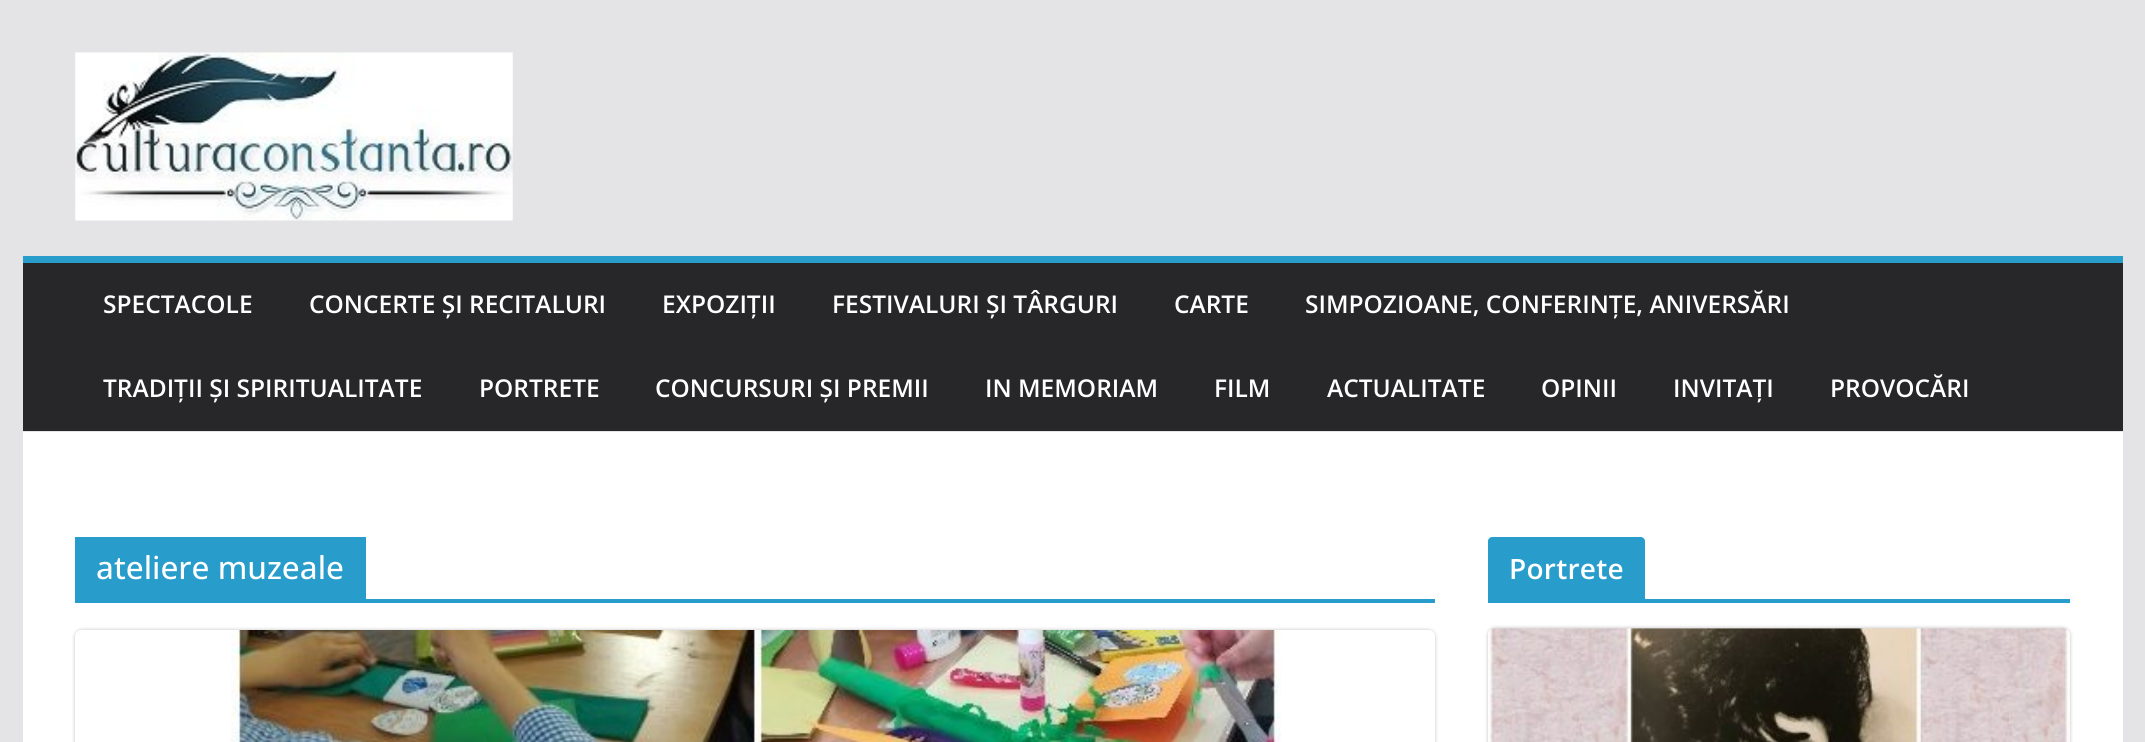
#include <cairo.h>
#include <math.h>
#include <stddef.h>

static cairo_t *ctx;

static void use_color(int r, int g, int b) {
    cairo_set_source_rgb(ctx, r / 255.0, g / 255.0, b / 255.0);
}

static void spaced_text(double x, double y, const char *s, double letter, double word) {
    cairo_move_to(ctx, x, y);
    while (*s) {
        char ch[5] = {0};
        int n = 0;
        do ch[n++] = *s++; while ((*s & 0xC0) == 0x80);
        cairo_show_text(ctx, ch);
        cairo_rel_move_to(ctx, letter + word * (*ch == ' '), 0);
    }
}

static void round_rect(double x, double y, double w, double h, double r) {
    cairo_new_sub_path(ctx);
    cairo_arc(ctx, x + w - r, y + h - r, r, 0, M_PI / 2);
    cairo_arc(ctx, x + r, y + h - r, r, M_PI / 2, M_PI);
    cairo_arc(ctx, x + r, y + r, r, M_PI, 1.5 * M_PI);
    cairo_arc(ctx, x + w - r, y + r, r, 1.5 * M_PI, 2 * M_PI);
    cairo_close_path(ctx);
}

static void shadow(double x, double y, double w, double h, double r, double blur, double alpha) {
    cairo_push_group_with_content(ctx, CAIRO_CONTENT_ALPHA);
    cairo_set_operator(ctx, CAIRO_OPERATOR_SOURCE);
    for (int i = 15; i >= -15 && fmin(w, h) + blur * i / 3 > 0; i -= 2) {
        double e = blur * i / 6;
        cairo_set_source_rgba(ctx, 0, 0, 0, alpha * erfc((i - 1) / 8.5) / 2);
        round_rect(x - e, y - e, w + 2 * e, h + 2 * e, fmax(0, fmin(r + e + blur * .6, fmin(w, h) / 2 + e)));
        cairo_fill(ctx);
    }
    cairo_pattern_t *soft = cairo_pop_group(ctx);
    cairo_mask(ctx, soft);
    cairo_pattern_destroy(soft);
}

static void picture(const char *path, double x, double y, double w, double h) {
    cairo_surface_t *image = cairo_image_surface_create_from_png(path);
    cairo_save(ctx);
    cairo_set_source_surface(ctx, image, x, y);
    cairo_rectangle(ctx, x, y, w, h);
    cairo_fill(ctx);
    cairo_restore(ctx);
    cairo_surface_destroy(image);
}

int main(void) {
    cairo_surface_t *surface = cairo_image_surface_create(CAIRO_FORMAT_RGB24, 2145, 742);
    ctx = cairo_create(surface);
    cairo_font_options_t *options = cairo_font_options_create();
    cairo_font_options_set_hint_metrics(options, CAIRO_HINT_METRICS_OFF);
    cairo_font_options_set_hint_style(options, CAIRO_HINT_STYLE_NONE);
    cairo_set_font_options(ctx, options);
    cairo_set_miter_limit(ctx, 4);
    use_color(228, 228, 231);
    cairo_paint(ctx);
    picture("img1.png", 75, 52, 438, 169);
    use_color(39, 39, 42);
    cairo_rectangle(ctx, 23, 263, 2100, 168);
    cairo_fill(ctx);
    use_color(40, 157, 204);
    cairo_rectangle(ctx, 23, 256, 2100, 7);
    cairo_fill(ctx);
    cairo_select_font_face(ctx, "Open Sans SemiBold", CAIRO_FONT_SLANT_NORMAL, CAIRO_FONT_WEIGHT_NORMAL);
    cairo_set_font_size(ctx, 24.5);
    use_color(255, 255, 255);
    cairo_move_to(ctx, 103, 313);
    cairo_show_text(ctx, "SPECTACOLE");
    cairo_move_to(ctx, 309, 313);
    cairo_show_text(ctx, "CONCERTE ȘI RECITALURI");
    cairo_move_to(ctx, 662, 313);
    cairo_show_text(ctx, "EXPOZIȚII");
    cairo_move_to(ctx, 832, 313);
    cairo_show_text(ctx, "FESTIVALURI ȘI TÂRGURI");
    cairo_move_to(ctx, 1174, 313);
    cairo_show_text(ctx, "CARTE");
    cairo_move_to(ctx, 1305, 313);
    cairo_show_text(ctx, "SIMPOZIOANE, CONFERINȚE, ANIVERSĂRI");
    cairo_move_to(ctx, 103, 397);
    cairo_show_text(ctx, "TRADIȚII ȘI SPIRITUALITATE");
    cairo_move_to(ctx, 479, 397);
    cairo_show_text(ctx, "PORTRETE");
    cairo_move_to(ctx, 655, 397);
    cairo_show_text(ctx, "CONCURSURI ȘI PREMII");
    cairo_move_to(ctx, 985, 397);
    cairo_show_text(ctx, "IN MEMORIAM");
    cairo_move_to(ctx, 1214, 397);
    cairo_show_text(ctx, "FILM");
    cairo_move_to(ctx, 1327, 397);
    cairo_show_text(ctx, "ACTUALITATE");
    cairo_move_to(ctx, 1541, 397);
    cairo_show_text(ctx, "OPINII");
    cairo_move_to(ctx, 1673, 397);
    cairo_show_text(ctx, "INVITAȚI");
    cairo_move_to(ctx, 1830, 397);
    cairo_show_text(ctx, "PROVOCĂRI");
    cairo_rectangle(ctx, 23, 432, 2100, 310);
    cairo_fill(ctx);
    use_color(40, 157, 204);
    cairo_rectangle(ctx, 75, 599, 1360, 4);
    cairo_fill(ctx);
    cairo_rectangle(ctx, 75, 537, 291, 62);
    cairo_fill(ctx);
    cairo_select_font_face(ctx, "Open Sans Medium", CAIRO_FONT_SLANT_NORMAL, CAIRO_FONT_WEIGHT_NORMAL);
    cairo_set_font_size(ctx, 31.5);
    use_color(255, 255, 255);
    cairo_move_to(ctx, 96, 579);
    cairo_show_text(ctx, "ateliere muzeale");
    cairo_save(ctx);
    cairo_set_fill_rule(ctx, CAIRO_FILL_RULE_EVEN_ODD);
    cairo_new_path(ctx);
    cairo_move_to(ctx, 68, 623);
    cairo_line_to(ctx, 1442, 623);
    cairo_line_to(ctx, 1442, 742);
    cairo_line_to(ctx, 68, 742);
    cairo_close_path(ctx);
    cairo_move_to(ctx, 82, 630);
    cairo_line_to(ctx, 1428, 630);
    cairo_curve_to(ctx, 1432, 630, 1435, 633, 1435, 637);
    cairo_line_to(ctx, 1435, 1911);
    cairo_curve_to(ctx, 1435, 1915, 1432, 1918, 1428, 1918);
    cairo_line_to(ctx, 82, 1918);
    cairo_curve_to(ctx, 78, 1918, 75, 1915, 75, 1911);
    cairo_line_to(ctx, 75, 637);
    cairo_curve_to(ctx, 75, 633, 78, 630, 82, 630);
    cairo_close_path(ctx);
    cairo_clip(ctx);
    use_color(0, 0, 0);
    shadow(75, 630, 1360, 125, 7, 2, 0.24);
    cairo_restore(ctx);
    picture("img2.png", 231, 630, 1050, 112);
    use_color(40, 157, 204);
    cairo_rectangle(ctx, 1488, 599, 582, 4);
    cairo_fill(ctx);
    cairo_new_path(ctx);
    cairo_move_to(ctx, 1492, 537);
    cairo_line_to(ctx, 1641, 537);
    cairo_curve_to(ctx, 1643, 537, 1645, 539, 1645, 541);
    cairo_line_to(ctx, 1645, 599);
    cairo_line_to(ctx, 1488, 599);
    cairo_line_to(ctx, 1488, 541);
    cairo_curve_to(ctx, 1488, 539, 1490, 537, 1492, 537);
    cairo_close_path(ctx);
    cairo_fill(ctx);
    cairo_select_font_face(ctx, "Open Sans SemiBold", CAIRO_FONT_SLANT_NORMAL, CAIRO_FONT_WEIGHT_NORMAL);
    cairo_set_font_size(ctx, 28);
    use_color(255, 255, 255);
    spaced_text(1509, 579, "Portrete", 0.25, 0);
    use_color(0, 0, 0);
    shadow(1488, 628, 582, 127, 7, 2, 0.24);
    picture("img3.png", 1488, 628, 582, 114);
    cairo_surface_write_to_png(surface, "result.png");
    cairo_font_options_destroy(options);
    cairo_destroy(ctx);
    cairo_surface_destroy(surface);
    return 0;
}
